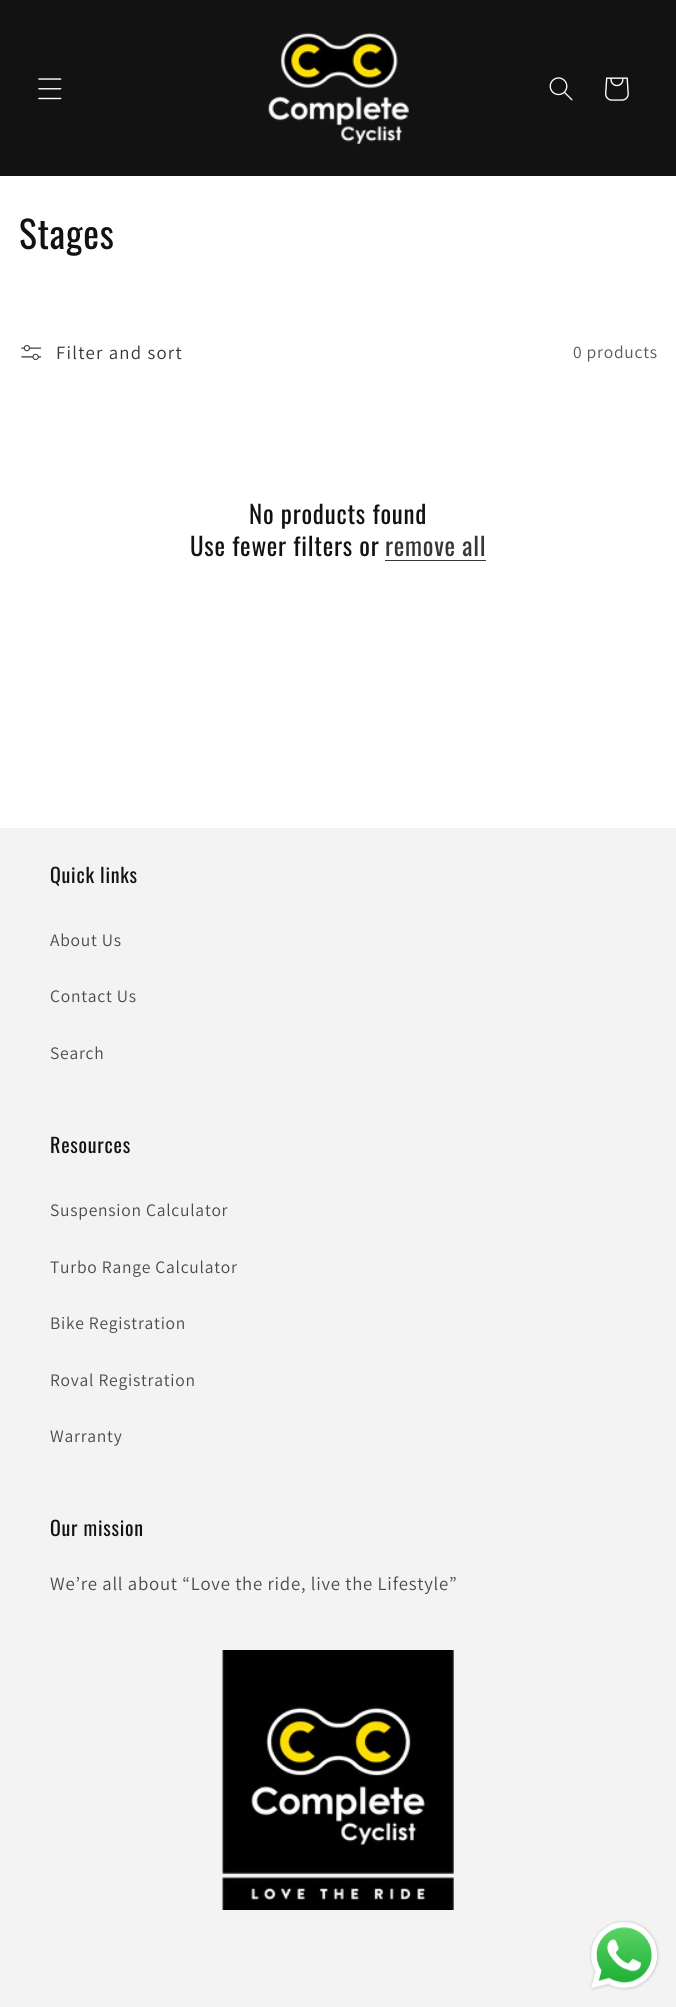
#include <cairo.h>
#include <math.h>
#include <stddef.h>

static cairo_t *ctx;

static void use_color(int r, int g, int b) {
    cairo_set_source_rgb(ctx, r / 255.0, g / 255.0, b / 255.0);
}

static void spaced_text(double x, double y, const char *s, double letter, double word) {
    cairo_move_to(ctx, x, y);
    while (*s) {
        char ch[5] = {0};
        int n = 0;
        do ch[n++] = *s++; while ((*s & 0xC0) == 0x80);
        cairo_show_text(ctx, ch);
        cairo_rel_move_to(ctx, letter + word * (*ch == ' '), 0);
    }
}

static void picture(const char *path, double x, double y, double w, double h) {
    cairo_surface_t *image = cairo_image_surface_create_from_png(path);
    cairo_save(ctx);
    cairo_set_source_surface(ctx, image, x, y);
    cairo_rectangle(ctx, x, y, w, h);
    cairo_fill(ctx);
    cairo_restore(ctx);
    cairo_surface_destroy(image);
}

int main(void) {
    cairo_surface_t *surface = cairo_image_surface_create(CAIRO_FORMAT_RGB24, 676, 2007);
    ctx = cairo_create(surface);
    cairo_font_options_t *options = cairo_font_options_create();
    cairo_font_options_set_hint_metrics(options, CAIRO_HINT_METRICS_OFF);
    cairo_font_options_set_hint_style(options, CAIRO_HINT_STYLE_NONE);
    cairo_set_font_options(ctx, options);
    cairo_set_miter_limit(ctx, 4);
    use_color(255, 255, 255);
    cairo_paint(ctx);
    use_color(18, 18, 18);
    cairo_rectangle(ctx, 0, 0, 676, 176);
    cairo_fill(ctx);
    picture("img1.png", 38, 78, 24, 22);
    picture("img2.png", 268, 32, 141, 113);
    picture("img3.png", 549, 77, 24, 24);
    picture("img4.png", 605, 77, 24, 24);
    cairo_select_font_face(ctx, "Oswald", CAIRO_FONT_SLANT_NORMAL, CAIRO_FONT_WEIGHT_NORMAL);
    cairo_set_font_size(ctx, 37.5);
    spaced_text(19, 249, "Stages", 0.75, 0);
    picture("img5.png", 21, 345, 21, 15);
    cairo_select_font_face(ctx, "Assistant", CAIRO_FONT_SLANT_NORMAL, CAIRO_FONT_WEIGHT_NORMAL);
    cairo_set_font_size(ctx, 18.75);
    use_color(54, 54, 54);
    spaced_text(56, 359, "Filter and sort", 1.25, 0);
    cairo_set_font_size(ctx, 17.5);
    use_color(89, 89, 89);
    spaced_text(573, 358, "0 products", 0.75, 0);
    cairo_select_font_face(ctx, "Oswald", CAIRO_FONT_SLANT_NORMAL, CAIRO_FONT_WEIGHT_NORMAL);
    cairo_set_font_size(ctx, 25);
    use_color(18, 18, 18);
    spaced_text(249, 524, "No products found", 0.75, 0);
    spaced_text(190, 556, "Use fewer filters or", 0.75, 0);
    use_color(54, 54, 54);
    spaced_text(385, 556, "remove all", 0.75, 0);
    cairo_rectangle(ctx, 385, 560, 101, 1);
    cairo_fill(ctx);
    use_color(243, 243, 243);
    cairo_rectangle(ctx, 0, 828, 676, 1179);
    cairo_fill(ctx);
    cairo_set_font_size(ctx, 20);
    use_color(18, 18, 18);
    spaced_text(50, 883, "Quick links", 0.75, 0);
    cairo_select_font_face(ctx, "Assistant", CAIRO_FONT_SLANT_NORMAL, CAIRO_FONT_WEIGHT_NORMAL);
    cairo_set_font_size(ctx, 17.5);
    use_color(74, 74, 74);
    spaced_text(50, 946, "About Us", 0.75, 0);
    spaced_text(50, 1002, "Contact Us", 0.75, 0);
    spaced_text(50, 1059, "Search", 0.75, 0);
    cairo_select_font_face(ctx, "Oswald", CAIRO_FONT_SLANT_NORMAL, CAIRO_FONT_WEIGHT_NORMAL);
    cairo_set_font_size(ctx, 20);
    use_color(18, 18, 18);
    spaced_text(50, 1153, "Resources", 0.75, 0);
    cairo_select_font_face(ctx, "Assistant", CAIRO_FONT_SLANT_NORMAL, CAIRO_FONT_WEIGHT_NORMAL);
    cairo_set_font_size(ctx, 17.5);
    use_color(74, 74, 74);
    spaced_text(50, 1216, "Suspension Calculator", 0.75, 0);
    spaced_text(50, 1273, "Turbo Range Calculator", 0.75, 0);
    spaced_text(50, 1329, "Bike Registration", 0.75, 0);
    spaced_text(50, 1386, "Roval Registration", 0.75, 0);
    spaced_text(50, 1442, "Warranty", 0.75, 0);
    cairo_select_font_face(ctx, "Oswald", CAIRO_FONT_SLANT_NORMAL, CAIRO_FONT_WEIGHT_NORMAL);
    cairo_set_font_size(ctx, 20);
    use_color(18, 18, 18);
    spaced_text(50, 1536, "Our mission", 0.75, 0);
    cairo_select_font_face(ctx, "Assistant", CAIRO_FONT_SLANT_NORMAL, CAIRO_FONT_WEIGHT_NORMAL);
    cairo_set_font_size(ctx, 18.75);
    use_color(74, 74, 74);
    spaced_text(50, 1590, "We’re all about “Love the ride, live the Lifestyle”", 0.75, 0);
    picture("img6.png", 222, 1650, 232, 260);
    picture("img7.png", 589, 1920, 71, 71);
    cairo_surface_write_to_png(surface, "result.png");
    cairo_font_options_destroy(options);
    cairo_destroy(ctx);
    cairo_surface_destroy(surface);
    return 0;
}
